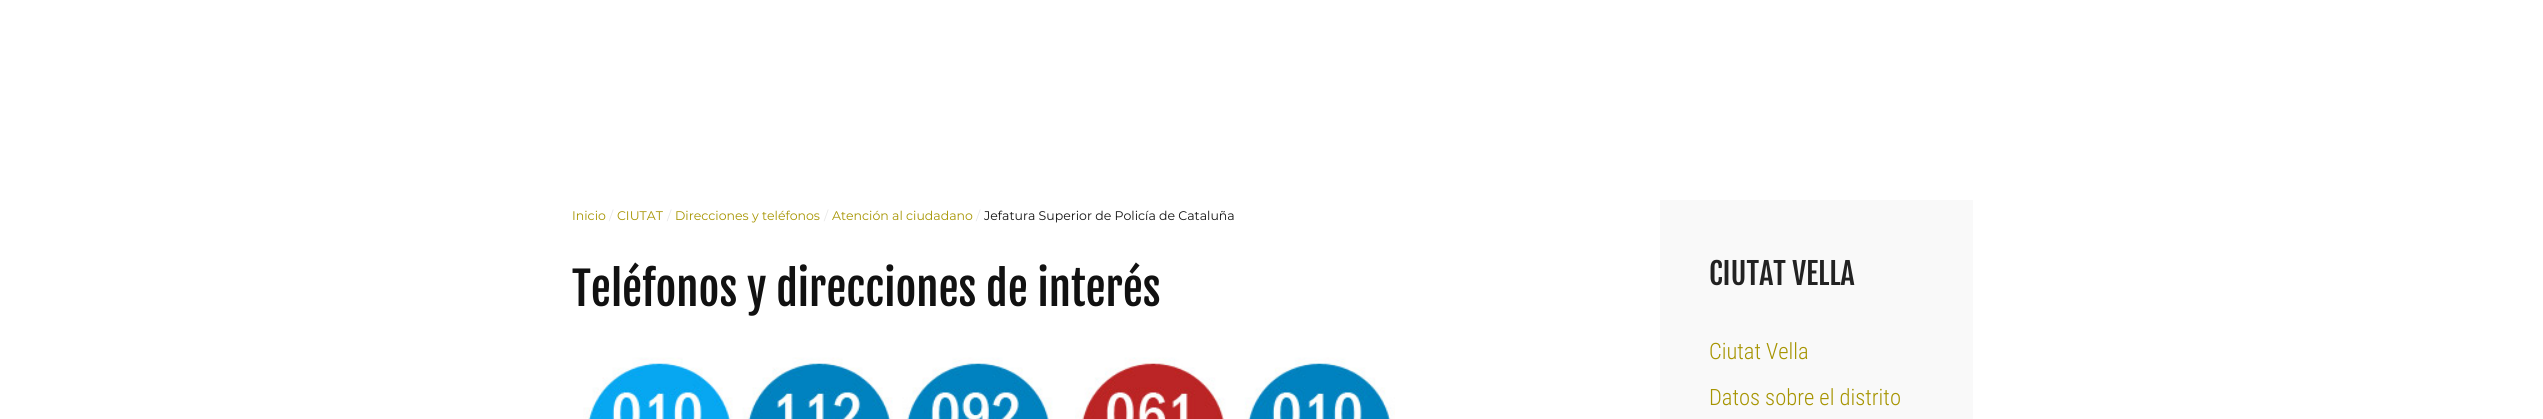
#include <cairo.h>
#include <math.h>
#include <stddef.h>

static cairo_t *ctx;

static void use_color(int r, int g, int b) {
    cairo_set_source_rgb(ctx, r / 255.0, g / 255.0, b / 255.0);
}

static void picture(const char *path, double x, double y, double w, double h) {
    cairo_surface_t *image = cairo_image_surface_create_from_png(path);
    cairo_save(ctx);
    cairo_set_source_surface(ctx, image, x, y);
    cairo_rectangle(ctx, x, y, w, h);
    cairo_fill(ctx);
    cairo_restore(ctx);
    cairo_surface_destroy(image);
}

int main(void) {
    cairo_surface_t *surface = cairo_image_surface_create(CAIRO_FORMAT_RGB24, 2543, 419);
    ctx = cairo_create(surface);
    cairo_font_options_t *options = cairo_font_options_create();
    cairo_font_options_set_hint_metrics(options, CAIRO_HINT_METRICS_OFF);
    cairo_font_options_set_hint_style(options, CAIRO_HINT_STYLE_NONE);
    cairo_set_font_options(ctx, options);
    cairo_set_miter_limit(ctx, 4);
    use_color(255, 255, 255);
    cairo_paint(ctx);
    cairo_select_font_face(ctx, "Montserrat Thin", CAIRO_FONT_SLANT_NORMAL, CAIRO_FONT_WEIGHT_NORMAL);
    cairo_set_font_size(ctx, 12.5);
    use_color(166, 148, 0);
    cairo_move_to(ctx, 572, 220);
    cairo_show_text(ctx, "Inicio");
    use_color(230, 230, 230);
    cairo_move_to(ctx, 609, 220);
    cairo_show_text(ctx, "/");
    use_color(166, 148, 0);
    cairo_move_to(ctx, 617, 220);
    cairo_show_text(ctx, "CIUTAT");
    use_color(230, 230, 230);
    cairo_move_to(ctx, 667, 220);
    cairo_show_text(ctx, "/");
    use_color(166, 148, 0);
    cairo_move_to(ctx, 675, 220);
    cairo_show_text(ctx, "Direcciones y teléfonos");
    use_color(230, 230, 230);
    cairo_move_to(ctx, 824, 220);
    cairo_show_text(ctx, "/");
    use_color(166, 148, 0);
    cairo_move_to(ctx, 832, 220);
    cairo_show_text(ctx, "Atención al ciudadano");
    use_color(230, 230, 230);
    cairo_move_to(ctx, 976, 220);
    cairo_show_text(ctx, "/");
    use_color(17, 17, 17);
    cairo_move_to(ctx, 984, 220);
    cairo_show_text(ctx, "Jefatura Superior de Policía de Cataluña");
    cairo_select_font_face(ctx, "Fjalla One", CAIRO_FONT_SLANT_NORMAL, CAIRO_FONT_WEIGHT_NORMAL);
    cairo_set_font_size(ctx, 45);
    cairo_move_to(ctx, 572, 306);
    cairo_show_text(ctx, "Teléfonos y direcciones de interés");
    picture("img1.png", 583, 357, 470, 62);
    picture("img2.png", 1075, 357, 320, 62);
    use_color(249, 249, 249);
    cairo_rectangle(ctx, 1660, 200, 313, 219);
    cairo_fill(ctx);
    cairo_set_font_size(ctx, 30);
    use_color(34, 34, 34);
    cairo_move_to(ctx, 1709, 285);
    cairo_show_text(ctx, "CIUTAT VELLA");
    cairo_select_font_face(ctx, "Roboto Condensed Light", CAIRO_FONT_SLANT_NORMAL, CAIRO_FONT_WEIGHT_NORMAL);
    cairo_set_font_size(ctx, 22.5);
    use_color(166, 148, 0);
    cairo_move_to(ctx, 1709, 359);
    cairo_show_text(ctx, "Ciutat Vella");
    cairo_move_to(ctx, 1709, 405);
    cairo_show_text(ctx, "Datos sobre el distrito");
    cairo_surface_write_to_png(surface, "result.png");
    cairo_font_options_destroy(options);
    cairo_destroy(ctx);
    cairo_surface_destroy(surface);
    return 0;
}
